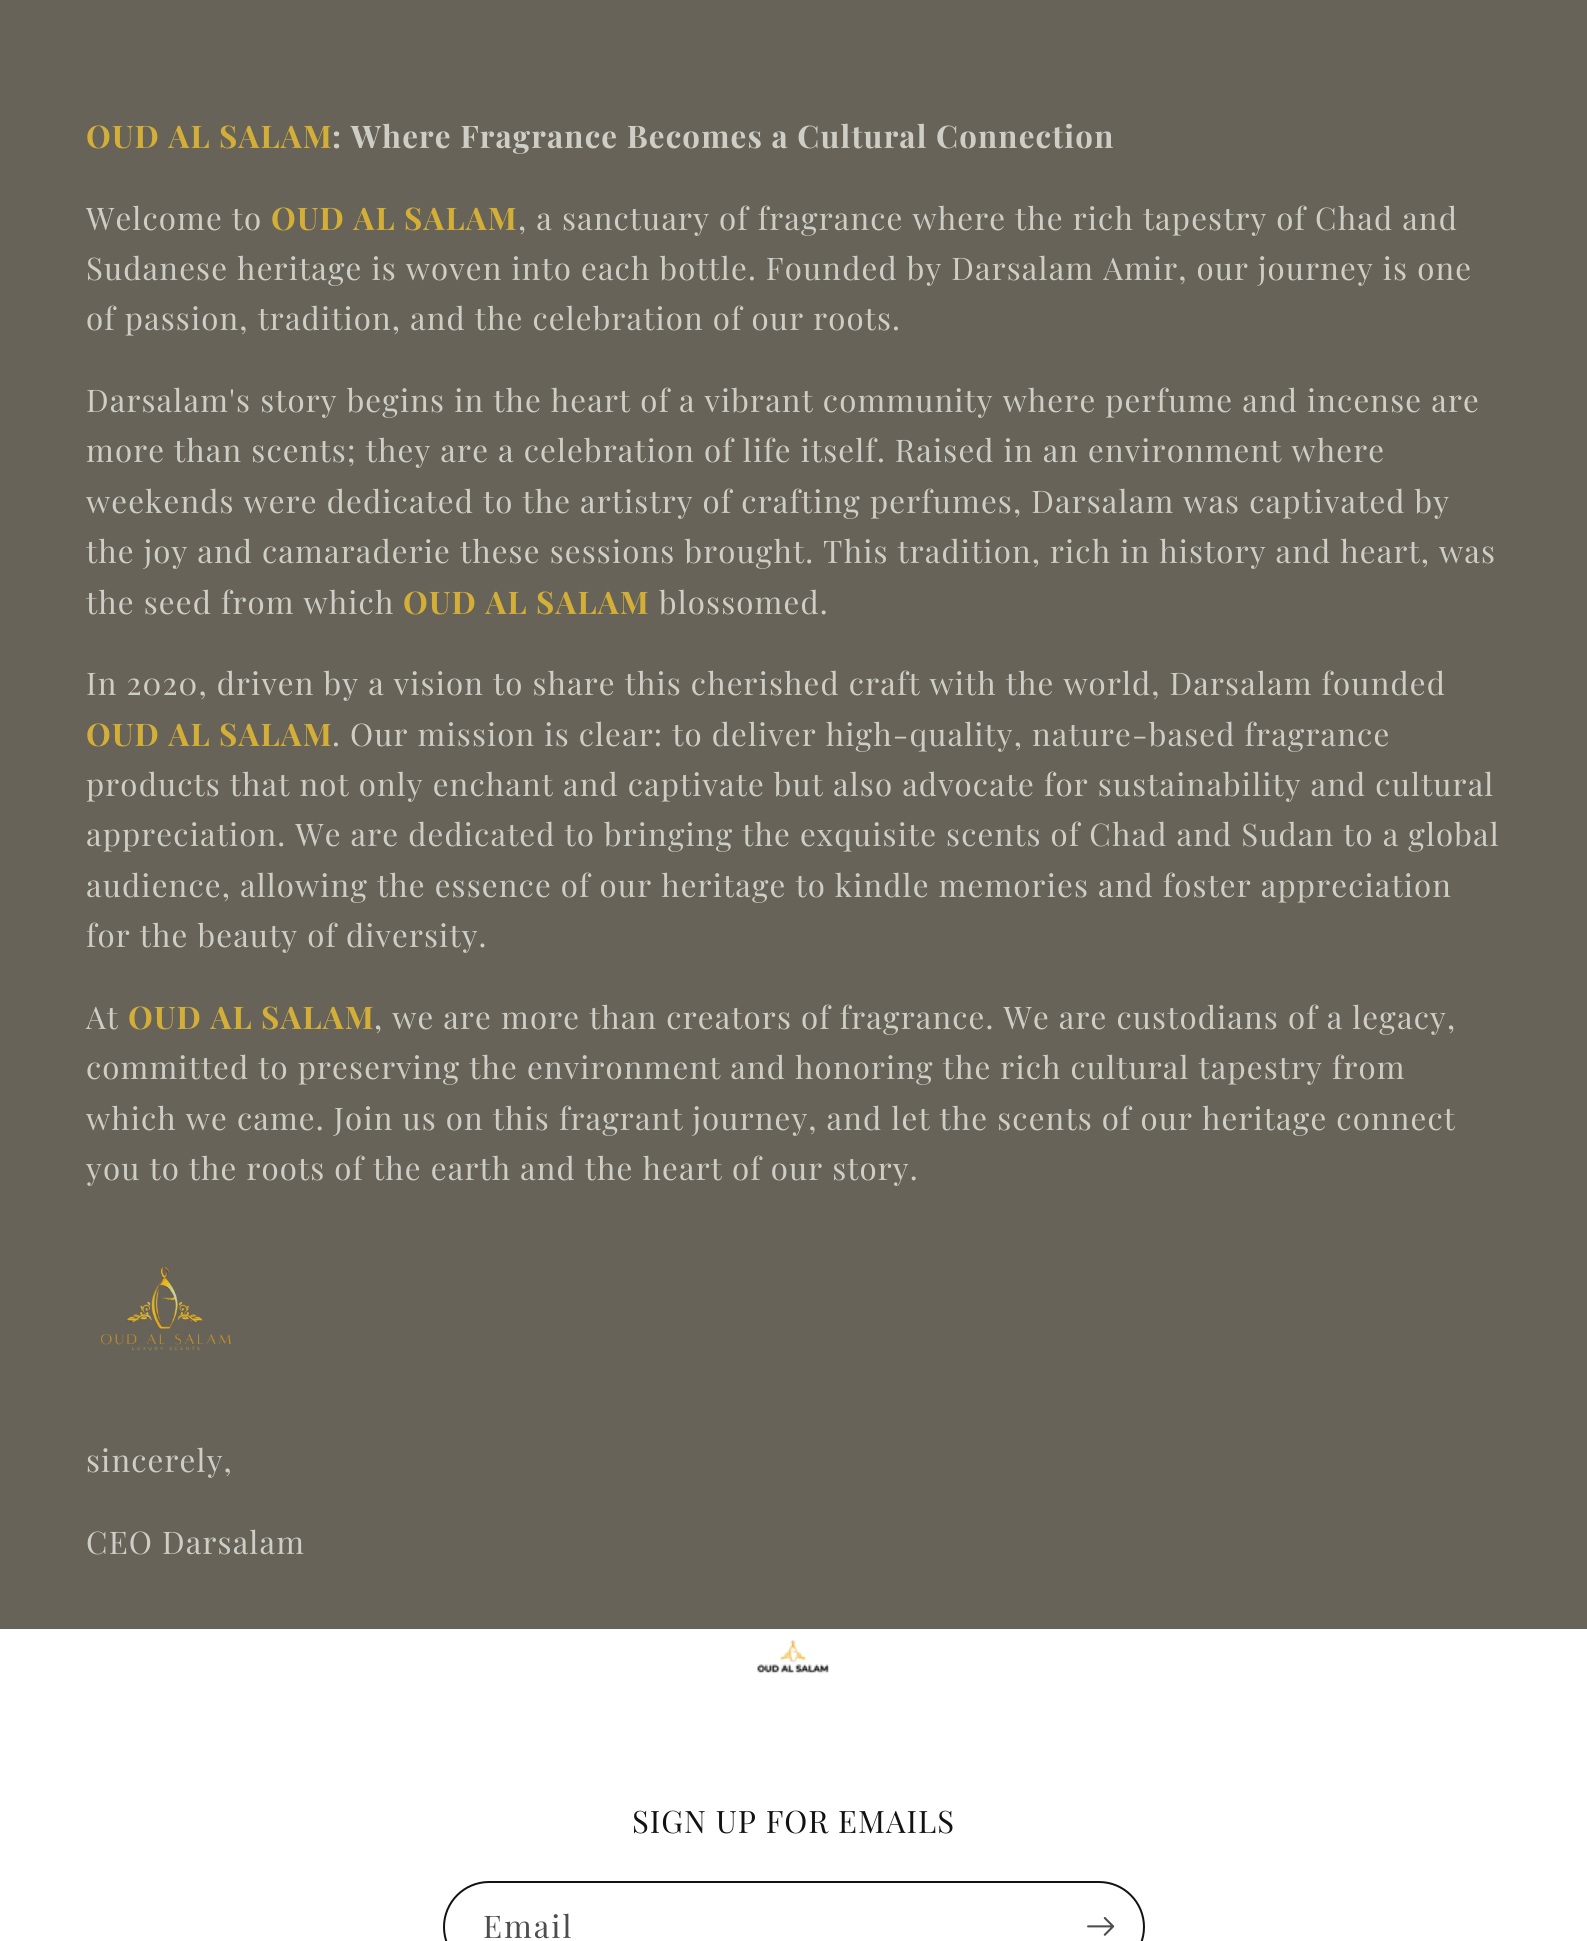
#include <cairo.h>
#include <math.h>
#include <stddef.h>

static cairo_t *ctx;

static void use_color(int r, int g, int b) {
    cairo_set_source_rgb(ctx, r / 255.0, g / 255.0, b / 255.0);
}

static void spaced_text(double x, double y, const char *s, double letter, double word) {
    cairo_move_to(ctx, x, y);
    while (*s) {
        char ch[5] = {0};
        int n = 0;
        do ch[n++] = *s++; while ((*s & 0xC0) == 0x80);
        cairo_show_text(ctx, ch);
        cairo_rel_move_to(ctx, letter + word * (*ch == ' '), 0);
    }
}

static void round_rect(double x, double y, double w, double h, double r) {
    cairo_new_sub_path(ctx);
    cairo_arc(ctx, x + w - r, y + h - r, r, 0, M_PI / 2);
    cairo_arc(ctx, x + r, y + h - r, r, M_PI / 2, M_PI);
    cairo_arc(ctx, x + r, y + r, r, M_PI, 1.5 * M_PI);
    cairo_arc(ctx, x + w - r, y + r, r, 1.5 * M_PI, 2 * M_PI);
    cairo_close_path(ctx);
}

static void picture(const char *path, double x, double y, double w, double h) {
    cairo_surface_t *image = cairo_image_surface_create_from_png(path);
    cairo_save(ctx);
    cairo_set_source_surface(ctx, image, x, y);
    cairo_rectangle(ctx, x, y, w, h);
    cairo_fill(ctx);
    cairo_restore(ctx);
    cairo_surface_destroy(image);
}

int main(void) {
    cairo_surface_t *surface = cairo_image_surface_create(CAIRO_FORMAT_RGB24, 1587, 1941);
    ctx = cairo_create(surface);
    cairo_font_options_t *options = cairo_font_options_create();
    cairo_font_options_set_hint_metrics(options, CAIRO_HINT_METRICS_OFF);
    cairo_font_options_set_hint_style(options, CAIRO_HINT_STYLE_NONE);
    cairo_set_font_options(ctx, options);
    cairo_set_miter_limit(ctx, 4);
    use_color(103, 99, 89);
    cairo_paint(ctx);
    cairo_select_font_face(ctx, "Playfair Display", CAIRO_FONT_SLANT_NORMAL, CAIRO_FONT_WEIGHT_BOLD);
    cairo_set_font_size(ctx, 31.2);
    use_color(212, 175, 55);
    spaced_text(86, 148, "OUD AL SALAM", 1.17, 0);
    use_color(207, 206, 198);
    spaced_text(332, 148, ": Where Fragrance Becomes a Cultural Connection", 1.17, 0);
    cairo_select_font_face(ctx, "Playfair Display", CAIRO_FONT_SLANT_NORMAL, CAIRO_FONT_WEIGHT_NORMAL);
    spaced_text(86, 230, "Welcome to", 1.17, 0);
    cairo_select_font_face(ctx, "Playfair Display", CAIRO_FONT_SLANT_NORMAL, CAIRO_FONT_WEIGHT_BOLD);
    use_color(212, 175, 55);
    spaced_text(271, 230, "OUD AL SALAM", 1.17, 0);
    cairo_select_font_face(ctx, "Playfair Display", CAIRO_FONT_SLANT_NORMAL, CAIRO_FONT_WEIGHT_NORMAL);
    use_color(207, 206, 198);
    spaced_text(518, 230, ", a sanctuary of fragrance where the rich tapestry of Chad and", 1.17, 0);
    spaced_text(86, 280, "Sudanese heritage is woven into each bottle. Founded by Darsalam Amir, our journey is one", 1.17, 0);
    spaced_text(86, 330, "of passion, tradition, and the celebration of our roots.", 1.17, 0);
    spaced_text(86, 412, "Darsalam's story begins in the heart of a vibrant community where perfume and incense are", 1.17, 0);
    spaced_text(86, 462, "more than scents; they are a celebration of life itself. Raised in an environment where", 1.17, 0);
    spaced_text(86, 513, "weekends were dedicated to the artistry of crafting perfumes, Darsalam was captivated by", 1.17, 0);
    spaced_text(86, 563, "the joy and camaraderie these sessions brought. This tradition, rich in history and heart, was", 1.17, 0);
    spaced_text(86, 614, "the seed from which", 1.17, 0);
    cairo_select_font_face(ctx, "Playfair Display", CAIRO_FONT_SLANT_NORMAL, CAIRO_FONT_WEIGHT_BOLD);
    use_color(212, 175, 55);
    spaced_text(403, 614, "OUD AL SALAM", 1.17, 0);
    cairo_select_font_face(ctx, "Playfair Display", CAIRO_FONT_SLANT_NORMAL, CAIRO_FONT_WEIGHT_NORMAL);
    use_color(207, 206, 198);
    spaced_text(659, 614, "blossomed.", 1.17, 0);
    spaced_text(86, 695, "In 2020, driven by a vision to share this cherished craft with the world, Darsalam founded", 1.17, 0);
    cairo_select_font_face(ctx, "Playfair Display", CAIRO_FONT_SLANT_NORMAL, CAIRO_FONT_WEIGHT_BOLD);
    use_color(212, 175, 55);
    spaced_text(86, 746, "OUD AL SALAM", 1.17, 0);
    cairo_select_font_face(ctx, "Playfair Display", CAIRO_FONT_SLANT_NORMAL, CAIRO_FONT_WEIGHT_NORMAL);
    use_color(207, 206, 198);
    spaced_text(332, 746, ". Our mission is clear: to deliver high-quality, nature-based fragrance", 1.17, 0);
    spaced_text(86, 796, "products that not only enchant and captivate but also advocate for sustainability and cultural", 1.17, 0);
    spaced_text(86, 846, "appreciation. We are dedicated to bringing the exquisite scents of Chad and Sudan to a global", 1.17, 0);
    spaced_text(86, 897, "audience, allowing the essence of our heritage to kindle memories and foster appreciation", 1.17, 0);
    spaced_text(86, 947, "for the beauty of diversity.", 1.17, 0);
    spaced_text(86, 1029, "At", 1.17, 0);
    cairo_select_font_face(ctx, "Playfair Display", CAIRO_FONT_SLANT_NORMAL, CAIRO_FONT_WEIGHT_BOLD);
    use_color(212, 175, 55);
    spaced_text(128, 1029, "OUD AL SALAM", 1.17, 0);
    cairo_select_font_face(ctx, "Playfair Display", CAIRO_FONT_SLANT_NORMAL, CAIRO_FONT_WEIGHT_NORMAL);
    use_color(207, 206, 198);
    spaced_text(374, 1029, ", we are more than creators of fragrance. We are custodians of a legacy,", 1.17, 0);
    spaced_text(86, 1079, "committed to preserving the environment and honoring the rich cultural tapestry from", 1.17, 0);
    spaced_text(86, 1130, "which we came. Join us on this fragrant journey, and let the scents of our heritage connect", 1.17, 0);
    spaced_text(86, 1180, "you to the roots of the earth and the heart of our story.", 1.17, 0);
    picture("img1.png", 101, 1267, 130, 84);
    spaced_text(86, 1472, "sincerely,", 1.17, 0);
    spaced_text(86, 1554, "CEO Darsalam", 1.17, 0);
    use_color(255, 255, 255);
    cairo_rectangle(ctx, 0, 1629, 1587, 312);
    cairo_fill(ctx);
    picture("img2.png", 757, 1640, 73, 34);
    cairo_set_font_size(ctx, 31);
    use_color(18, 18, 18);
    spaced_text(632, 1833, "SIGN UP FOR EMAILS", 1, 0);
    round_rect(444, 1882, 700, 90, 45);
    cairo_stroke(ctx);
    cairo_set_font_size(ctx, 31.2);
    use_color(77, 77, 77);
    spaced_text(483, 1938, "Email", 2, 0);
    picture("img3.png", 1087, 1917, 28, 19);
    cairo_surface_write_to_png(surface, "result.png");
    cairo_font_options_destroy(options);
    cairo_destroy(ctx);
    cairo_surface_destroy(surface);
    return 0;
}
